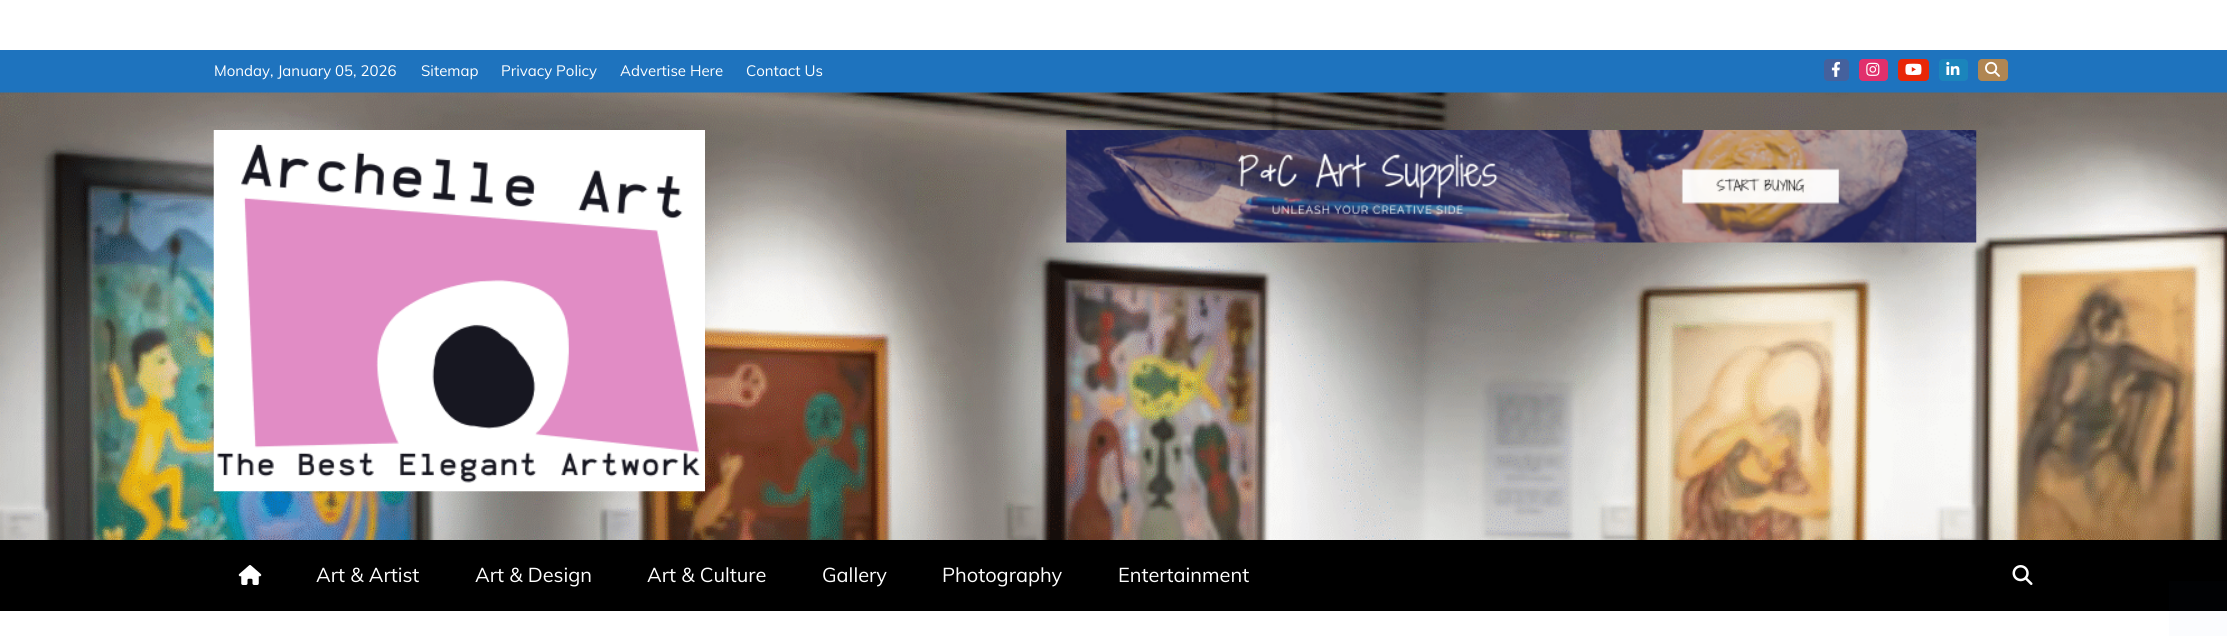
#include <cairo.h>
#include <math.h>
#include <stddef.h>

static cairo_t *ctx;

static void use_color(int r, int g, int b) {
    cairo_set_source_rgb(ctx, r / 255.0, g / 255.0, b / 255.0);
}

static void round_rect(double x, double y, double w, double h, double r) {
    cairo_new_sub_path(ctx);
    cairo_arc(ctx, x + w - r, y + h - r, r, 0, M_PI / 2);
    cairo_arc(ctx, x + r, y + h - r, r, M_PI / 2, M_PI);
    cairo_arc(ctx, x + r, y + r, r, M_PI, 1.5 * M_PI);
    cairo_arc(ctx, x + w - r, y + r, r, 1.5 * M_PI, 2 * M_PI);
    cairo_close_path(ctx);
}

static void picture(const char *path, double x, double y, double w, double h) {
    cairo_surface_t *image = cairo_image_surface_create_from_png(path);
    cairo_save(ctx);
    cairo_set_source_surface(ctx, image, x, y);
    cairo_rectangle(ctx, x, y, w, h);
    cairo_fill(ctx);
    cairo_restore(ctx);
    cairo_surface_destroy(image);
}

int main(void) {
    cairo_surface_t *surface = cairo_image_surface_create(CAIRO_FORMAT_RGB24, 2227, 636);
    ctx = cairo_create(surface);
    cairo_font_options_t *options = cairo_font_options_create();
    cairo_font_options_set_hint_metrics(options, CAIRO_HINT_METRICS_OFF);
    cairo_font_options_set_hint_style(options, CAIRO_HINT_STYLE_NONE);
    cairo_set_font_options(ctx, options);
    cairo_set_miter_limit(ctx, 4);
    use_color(255, 255, 255);
    cairo_paint(ctx);
    use_color(251, 252, 254);
    cairo_rectangle(ctx, 2169, 611, 58, 25);
    cairo_fill(ctx);
    use_color(30, 115, 190);
    cairo_rectangle(ctx, 0, 50, 2227, 43);
    cairo_fill(ctx);
    cairo_select_font_face(ctx, "Muli", CAIRO_FONT_SLANT_NORMAL, CAIRO_FONT_WEIGHT_NORMAL);
    cairo_set_font_size(ctx, 15);
    use_color(255, 255, 255);
    cairo_move_to(ctx, 214, 76);
    cairo_show_text(ctx, "Monday, January 05, 2026");
    cairo_move_to(ctx, 421, 76);
    cairo_show_text(ctx, "Sitemap");
    cairo_move_to(ctx, 501, 76);
    cairo_show_text(ctx, "Privacy Policy");
    cairo_move_to(ctx, 620, 76);
    cairo_show_text(ctx, "Advertise Here");
    cairo_move_to(ctx, 746, 76);
    cairo_show_text(ctx, "Contact Us");
    use_color(69, 97, 157);
    round_rect(1824, 59, 25, 22, 4);
    cairo_fill(ctx);
    picture("img1.png", 1831, 61, 9, 16);
    use_color(225, 48, 108);
    round_rect(1859, 59, 29, 22, 4);
    cairo_fill(ctx);
    picture("img2.png", 1866, 62, 14, 14);
    use_color(232, 39, 7);
    round_rect(1898, 59, 31, 22, 4);
    cairo_fill(ctx);
    picture("img3.png", 1905, 63, 17, 12);
    use_color(27, 133, 188);
    round_rect(1939, 59, 29, 22, 4);
    cairo_fill(ctx);
    picture("img4.png", 1946, 61, 14, 14);
    use_color(176, 134, 83);
    round_rect(1978, 59, 30, 22, 4);
    cairo_fill(ctx);
    picture("img5.png", 1985, 61, 15, 16);
    picture("img6.png", 0, 92, 2227, 448);
    picture("img7.png", 213, 130, 492, 362);
    picture("img8.png", 1066, 130, 911, 113);
    use_color(0, 0, 0);
    cairo_rectangle(ctx, 0, 540, 2227, 71);
    cairo_fill(ctx);
    use_color(1, 2, 4);
    cairo_rectangle(ctx, 2169, 581, 58, 30);
    cairo_fill(ctx);
    picture("img9.png", 238, 565, 24, 20);
    cairo_set_font_size(ctx, 20);
    use_color(255, 255, 255);
    cairo_move_to(ctx, 316, 582);
    cairo_show_text(ctx, "Art & Artist");
    cairo_move_to(ctx, 475, 582);
    cairo_show_text(ctx, "Art & Design");
    cairo_move_to(ctx, 647, 582);
    cairo_show_text(ctx, "Art & Culture");
    cairo_move_to(ctx, 822, 582);
    cairo_show_text(ctx, "Gallery");
    cairo_move_to(ctx, 942, 582);
    cairo_show_text(ctx, "Photography");
    cairo_move_to(ctx, 1118, 582);
    cairo_show_text(ctx, "Entertainment");
    picture("img10.png", 2012, 565, 21, 20);
    cairo_surface_write_to_png(surface, "result.png");
    cairo_font_options_destroy(options);
    cairo_destroy(ctx);
    cairo_surface_destroy(surface);
    return 0;
}
